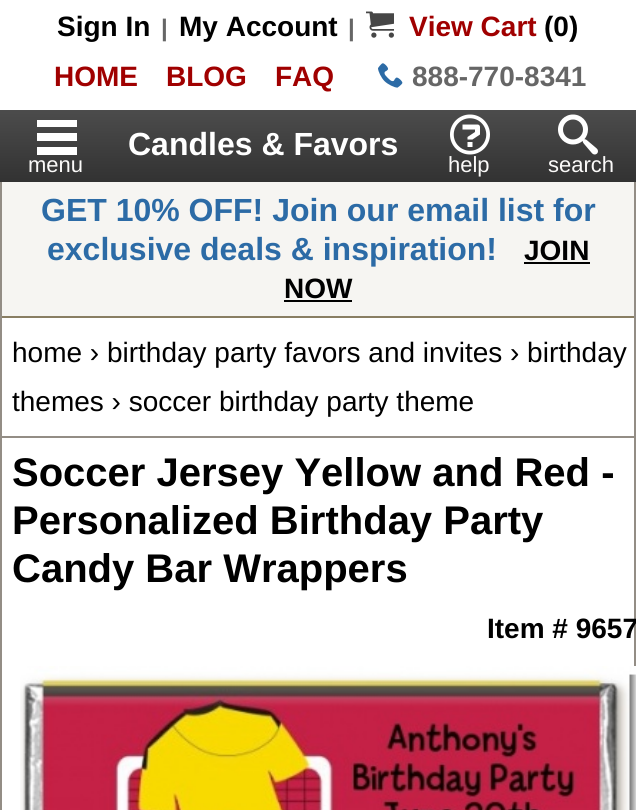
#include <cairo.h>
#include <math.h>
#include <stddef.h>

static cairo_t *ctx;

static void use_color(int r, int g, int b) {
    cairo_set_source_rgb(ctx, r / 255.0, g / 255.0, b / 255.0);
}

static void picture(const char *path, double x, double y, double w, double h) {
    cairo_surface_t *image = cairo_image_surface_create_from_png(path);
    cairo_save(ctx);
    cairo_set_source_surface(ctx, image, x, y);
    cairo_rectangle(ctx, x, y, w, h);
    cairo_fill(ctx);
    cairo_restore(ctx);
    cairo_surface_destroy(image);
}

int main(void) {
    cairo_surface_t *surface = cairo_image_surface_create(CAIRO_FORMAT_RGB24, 636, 810);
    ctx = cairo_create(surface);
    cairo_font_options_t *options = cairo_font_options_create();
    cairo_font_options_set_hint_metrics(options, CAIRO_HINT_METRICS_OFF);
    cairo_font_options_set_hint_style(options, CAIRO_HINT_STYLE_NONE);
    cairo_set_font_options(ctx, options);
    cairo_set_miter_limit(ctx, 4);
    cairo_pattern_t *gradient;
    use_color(255, 255, 255);
    cairo_paint(ctx);
    cairo_select_font_face(ctx, "Liberation Sans", CAIRO_FONT_SLANT_NORMAL, CAIRO_FONT_WEIGHT_BOLD);
    cairo_set_font_size(ctx, 28);
    use_color(0, 0, 0);
    cairo_move_to(ctx, 57, 36);
    cairo_show_text(ctx, "Sign In");
    cairo_set_font_size(ctx, 24);
    use_color(102, 102, 102);
    cairo_move_to(ctx, 161, 36);
    cairo_show_text(ctx, "|");
    cairo_set_font_size(ctx, 28);
    use_color(0, 0, 0);
    cairo_move_to(ctx, 179, 36);
    cairo_show_text(ctx, "My Account");
    cairo_set_font_size(ctx, 24);
    use_color(102, 102, 102);
    cairo_move_to(ctx, 348, 36);
    cairo_show_text(ctx, "|");
    picture("img1.png", 366, 11, 28, 27);
    cairo_set_font_size(ctx, 28);
    use_color(160, 0, 0);
    cairo_move_to(ctx, 409, 36);
    cairo_show_text(ctx, "View Cart");
    use_color(0, 0, 0);
    cairo_move_to(ctx, 544, 36);
    cairo_show_text(ctx, "(0)");
    use_color(160, 0, 0);
    cairo_move_to(ctx, 54, 86);
    cairo_show_text(ctx, "HOME");
    cairo_move_to(ctx, 166, 86);
    cairo_show_text(ctx, "BLOG");
    cairo_move_to(ctx, 275, 86);
    cairo_show_text(ctx, "FAQ");
    picture("img2.png", 378, 63, 25, 25);
    use_color(102, 102, 102);
    cairo_move_to(ctx, 412, 86);
    cairo_show_text(ctx, "888-770-8341");
    gradient = cairo_pattern_create_linear(318, 110, 318, 182);
    cairo_pattern_add_color_stop_rgba(gradient, 0, 0.298, 0.298, 0.298, 1);
    cairo_pattern_add_color_stop_rgba(gradient, 1, 0.196, 0.196, 0.196, 1);
    cairo_set_source(ctx, gradient);
    cairo_pattern_destroy(gradient);
    cairo_rectangle(ctx, 0, 110, 636, 72);
    cairo_fill(ctx);
    cairo_set_font_size(ctx, 32);
    use_color(255, 255, 255);
    cairo_move_to(ctx, 128, 155);
    cairo_show_text(ctx, "Candles & Favors");
    cairo_new_path(ctx);
    cairo_move_to(ctx, 37, 120);
    cairo_line_to(ctx, 77, 120);
    cairo_line_to(ctx, 77, 127);
    cairo_line_to(ctx, 37, 127);
    cairo_close_path(ctx);
    cairo_move_to(ctx, 37, 133);
    cairo_line_to(ctx, 77, 133);
    cairo_line_to(ctx, 77, 141);
    cairo_line_to(ctx, 37, 141);
    cairo_close_path(ctx);
    cairo_move_to(ctx, 37, 147);
    cairo_line_to(ctx, 77, 147);
    cairo_line_to(ctx, 77, 155);
    cairo_line_to(ctx, 37, 155);
    cairo_close_path(ctx);
    cairo_fill(ctx);
    cairo_select_font_face(ctx, "Liberation Sans", CAIRO_FONT_SLANT_NORMAL, CAIRO_FONT_WEIGHT_NORMAL);
    cairo_set_font_size(ctx, 22);
    use_color(251, 250, 249);
    cairo_move_to(ctx, 28, 172);
    cairo_show_text(ctx, "menu");
    picture("img3.png", 450, 114, 40, 41);
    cairo_move_to(ctx, 448, 172);
    cairo_show_text(ctx, "help");
    picture("img4.png", 558, 114, 40, 41);
    cairo_move_to(ctx, 548, 172);
    cairo_show_text(ctx, "search");
    use_color(147, 141, 133);
    cairo_rectangle(ctx, 634, 182, 2, 484);
    cairo_fill(ctx);
    cairo_rectangle(ctx, 0, 182, 2, 628);
    cairo_fill(ctx);
    use_color(246, 245, 242);
    cairo_rectangle(ctx, 2, 182, 632, 134);
    cairo_fill(ctx);
    use_color(137, 126, 99);
    cairo_rectangle(ctx, 2, 316, 632, 2);
    cairo_fill(ctx);
    cairo_select_font_face(ctx, "Liberation Sans", CAIRO_FONT_SLANT_NORMAL, CAIRO_FONT_WEIGHT_BOLD);
    cairo_set_font_size(ctx, 32);
    use_color(44, 107, 166);
    cairo_move_to(ctx, 41, 221);
    cairo_show_text(ctx, "GET 10% OFF! Join our email list for");
    cairo_move_to(ctx, 47, 260);
    cairo_show_text(ctx, "exclusive deals & inspiration!");
    cairo_set_font_size(ctx, 28);
    use_color(0, 0, 0);
    cairo_move_to(ctx, 524, 260);
    cairo_show_text(ctx, "JOIN");
    cairo_rectangle(ctx, 524, 262, 66, 2);
    cairo_fill(ctx);
    cairo_move_to(ctx, 284, 298);
    cairo_show_text(ctx, "NOW");
    cairo_rectangle(ctx, 284, 300, 68, 2);
    cairo_fill(ctx);
    use_color(147, 141, 133);
    cairo_rectangle(ctx, 2, 436, 634, 2);
    cairo_fill(ctx);
    cairo_select_font_face(ctx, "Liberation Sans", CAIRO_FONT_SLANT_NORMAL, CAIRO_FONT_WEIGHT_NORMAL);
    use_color(0, 0, 0);
    cairo_move_to(ctx, 12, 362);
    cairo_show_text(ctx, "home › birthday party favors and invites › birthday");
    cairo_move_to(ctx, 12, 411);
    cairo_show_text(ctx, "themes › soccer birthday party theme");
    cairo_select_font_face(ctx, "Liberation Sans", CAIRO_FONT_SLANT_NORMAL, CAIRO_FONT_WEIGHT_BOLD);
    cairo_set_font_size(ctx, 40);
    cairo_move_to(ctx, 12, 486);
    cairo_show_text(ctx, "Soccer Jersey Yellow and Red -");
    cairo_move_to(ctx, 12, 534);
    cairo_show_text(ctx, "Personalized Birthday Party");
    cairo_move_to(ctx, 12, 582);
    cairo_show_text(ctx, "Candy Bar Wrappers");
    cairo_set_font_size(ctx, 28);
    cairo_move_to(ctx, 487, 638);
    cairo_show_text(ctx, "Item # 9657");
    picture("img5.png", 20, 666, 616, 144);
    cairo_surface_write_to_png(surface, "result.png");
    cairo_font_options_destroy(options);
    cairo_destroy(ctx);
    cairo_surface_destroy(surface);
    return 0;
}
